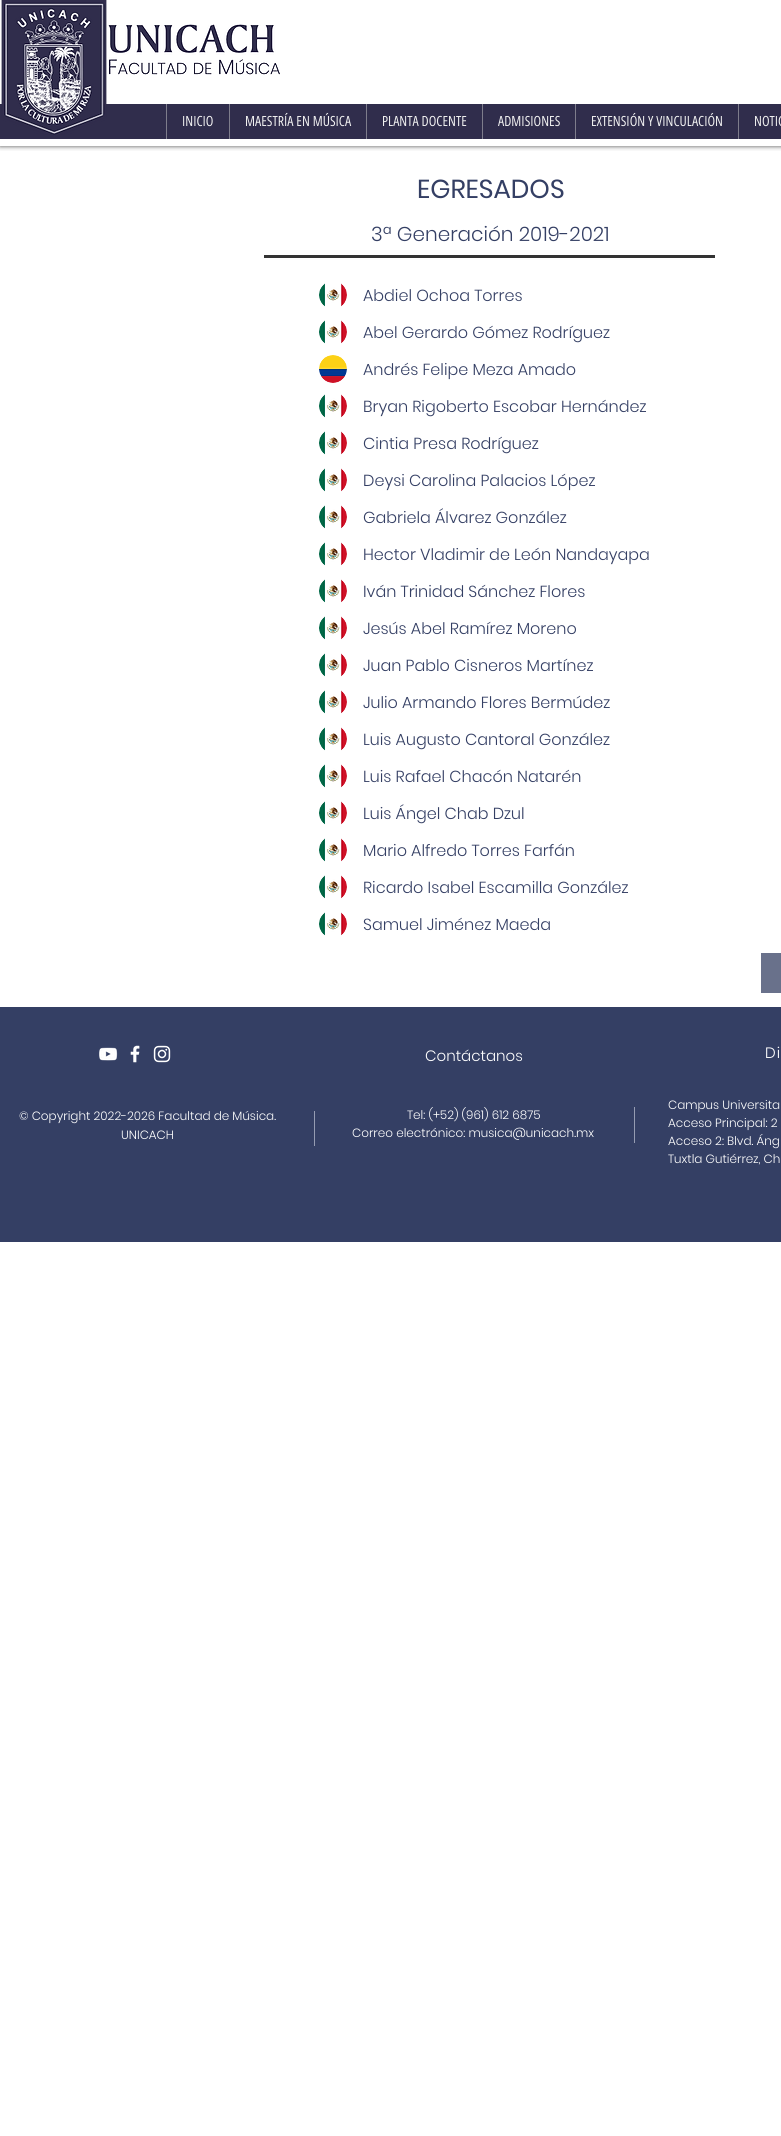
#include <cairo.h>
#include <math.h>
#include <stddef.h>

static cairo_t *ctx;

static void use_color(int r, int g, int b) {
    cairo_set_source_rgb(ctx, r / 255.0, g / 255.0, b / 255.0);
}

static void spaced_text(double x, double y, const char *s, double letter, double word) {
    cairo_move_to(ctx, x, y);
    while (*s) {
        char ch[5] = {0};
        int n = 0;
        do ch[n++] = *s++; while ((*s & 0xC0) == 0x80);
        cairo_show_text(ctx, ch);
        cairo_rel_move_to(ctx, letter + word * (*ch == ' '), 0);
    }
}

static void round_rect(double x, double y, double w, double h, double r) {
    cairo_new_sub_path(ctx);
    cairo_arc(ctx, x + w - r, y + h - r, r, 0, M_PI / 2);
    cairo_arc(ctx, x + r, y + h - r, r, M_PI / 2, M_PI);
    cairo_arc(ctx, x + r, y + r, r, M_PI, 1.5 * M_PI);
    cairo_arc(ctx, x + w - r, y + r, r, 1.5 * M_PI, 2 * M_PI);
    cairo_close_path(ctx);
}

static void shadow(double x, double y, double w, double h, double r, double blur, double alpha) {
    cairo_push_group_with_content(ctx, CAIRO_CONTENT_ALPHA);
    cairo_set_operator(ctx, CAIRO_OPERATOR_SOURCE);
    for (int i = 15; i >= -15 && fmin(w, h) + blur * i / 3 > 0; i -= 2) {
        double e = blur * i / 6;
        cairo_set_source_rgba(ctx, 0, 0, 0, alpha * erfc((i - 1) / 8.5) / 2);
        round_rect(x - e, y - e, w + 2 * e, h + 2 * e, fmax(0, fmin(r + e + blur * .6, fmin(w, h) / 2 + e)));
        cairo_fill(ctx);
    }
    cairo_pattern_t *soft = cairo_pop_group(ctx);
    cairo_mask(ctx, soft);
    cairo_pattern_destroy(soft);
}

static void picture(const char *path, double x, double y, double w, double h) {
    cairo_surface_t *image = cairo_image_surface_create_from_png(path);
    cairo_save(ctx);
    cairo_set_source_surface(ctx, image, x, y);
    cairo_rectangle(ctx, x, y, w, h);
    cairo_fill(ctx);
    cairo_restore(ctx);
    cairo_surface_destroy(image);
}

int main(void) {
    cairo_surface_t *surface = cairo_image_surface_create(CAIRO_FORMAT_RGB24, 781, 2136);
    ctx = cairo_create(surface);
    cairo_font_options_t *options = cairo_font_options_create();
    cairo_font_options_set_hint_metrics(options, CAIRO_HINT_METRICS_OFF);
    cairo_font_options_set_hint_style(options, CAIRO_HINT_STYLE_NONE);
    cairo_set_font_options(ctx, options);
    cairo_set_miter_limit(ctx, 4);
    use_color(255, 255, 255);
    cairo_paint(ctx);
    cairo_save(ctx);
    cairo_rectangle(ctx, 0, 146, 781, 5);
    cairo_clip(ctx);
    use_color(0, 0, 0);
    shadow(0, 0, 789, 146, 0, 2.5, 0.7);
    cairo_restore(ctx);
    use_color(48, 45, 76);
    cairo_rectangle(ctx, 0, 104, 781, 35);
    cairo_fill(ctx);
    picture("img1.png", 1, 0, 106, 135);
    picture("img2.png", 108, 24, 172, 51);
    use_color(126, 125, 140);
    cairo_rectangle(ctx, 166, 104, 1, 35);
    cairo_fill(ctx);
    cairo_select_font_face(ctx, "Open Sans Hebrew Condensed", CAIRO_FONT_SLANT_NORMAL, CAIRO_FONT_WEIGHT_NORMAL);
    cairo_set_font_size(ctx, 14);
    use_color(242, 242, 242);
    cairo_move_to(ctx, 182, 126);
    cairo_show_text(ctx, "INICIO");
    use_color(126, 125, 140);
    cairo_rectangle(ctx, 229, 104, 1, 35);
    cairo_fill(ctx);
    use_color(242, 242, 242);
    cairo_move_to(ctx, 245, 126);
    cairo_show_text(ctx, "MAESTRÍA EN MÚSICA");
    use_color(126, 125, 140);
    cairo_rectangle(ctx, 366, 104, 1, 35);
    cairo_fill(ctx);
    use_color(242, 242, 242);
    cairo_move_to(ctx, 382, 126);
    cairo_show_text(ctx, "PLANTA DOCENTE");
    use_color(126, 125, 140);
    cairo_rectangle(ctx, 482, 104, 1, 35);
    cairo_fill(ctx);
    use_color(242, 242, 242);
    cairo_move_to(ctx, 498, 126);
    cairo_show_text(ctx, "ADMISIONES");
    use_color(126, 125, 140);
    cairo_rectangle(ctx, 575, 104, 1, 35);
    cairo_fill(ctx);
    use_color(242, 242, 242);
    cairo_move_to(ctx, 591, 126);
    cairo_show_text(ctx, "EXTENSIÓN Y VINCULACIÓN");
    use_color(126, 125, 140);
    cairo_rectangle(ctx, 738, 104, 1, 35);
    cairo_fill(ctx);
    use_color(242, 242, 242);
    cairo_move_to(ctx, 754, 126);
    cairo_show_text(ctx, "NOTIC");
    cairo_select_font_face(ctx, "Poppins", CAIRO_FONT_SLANT_NORMAL, CAIRO_FONT_WEIGHT_NORMAL);
    cairo_set_font_size(ctx, 26);
    use_color(52, 63, 100);
    cairo_move_to(ctx, 417, 198);
    cairo_show_text(ctx, "EGRESADOS");
    cairo_select_font_face(ctx, "Poppins Light", CAIRO_FONT_SLANT_NORMAL, CAIRO_FONT_WEIGHT_NORMAL);
    cairo_set_font_size(ctx, 20);
    cairo_move_to(ctx, 371, 241);
    cairo_show_text(ctx, "3ª Generación 2019-2021");
    use_color(51, 51, 51);
    cairo_rectangle(ctx, 264, 255, 451, 3);
    cairo_fill(ctx);
    picture("img3.png", 319, 283, 28, 24);
    cairo_set_font_size(ctx, 16);
    use_color(52, 63, 100);
    cairo_move_to(ctx, 363, 301);
    cairo_show_text(ctx, "Abdiel Ochoa Torres");
    picture("img3.png", 319, 320, 28, 24);
    cairo_move_to(ctx, 363, 338);
    cairo_show_text(ctx, "Abel Gerardo Gómez Rodríguez");
    picture("img4.png", 319, 355, 28, 28);
    cairo_move_to(ctx, 363, 375);
    cairo_show_text(ctx, "Andrés Felipe Meza Amado");
    picture("img3.png", 319, 394, 28, 24);
    cairo_move_to(ctx, 363, 412);
    cairo_show_text(ctx, "Bryan Rigoberto Escobar Hernández");
    picture("img3.png", 319, 431, 28, 24);
    cairo_move_to(ctx, 363, 449);
    cairo_show_text(ctx, "Cintia Presa Rodríguez");
    picture("img3.png", 319, 468, 28, 24);
    cairo_move_to(ctx, 363, 486);
    cairo_show_text(ctx, "Deysi Carolina Palacios López");
    picture("img3.png", 319, 505, 28, 24);
    cairo_move_to(ctx, 363, 523);
    cairo_show_text(ctx, "Gabriela Álvarez González");
    picture("img3.png", 319, 542, 28, 24);
    cairo_move_to(ctx, 363, 560);
    cairo_show_text(ctx, "Hector Vladimir de León Nandayapa");
    picture("img3.png", 319, 579, 28, 24);
    cairo_move_to(ctx, 363, 597);
    cairo_show_text(ctx, "Iván Trinidad Sánchez Flores");
    picture("img3.png", 319, 616, 28, 24);
    cairo_move_to(ctx, 363, 634);
    cairo_show_text(ctx, "Jesús Abel Ramírez Moreno");
    picture("img3.png", 319, 653, 28, 24);
    cairo_move_to(ctx, 363, 671);
    cairo_show_text(ctx, "Juan Pablo Cisneros Martínez");
    picture("img3.png", 319, 690, 28, 24);
    cairo_move_to(ctx, 363, 708);
    cairo_show_text(ctx, "Julio Armando Flores Bermúdez");
    picture("img3.png", 319, 727, 28, 24);
    cairo_move_to(ctx, 363, 745);
    cairo_show_text(ctx, "Luis Augusto Cantoral González");
    picture("img3.png", 319, 764, 28, 24);
    cairo_move_to(ctx, 363, 782);
    cairo_show_text(ctx, "Luis Rafael Chacón Natarén");
    picture("img3.png", 319, 801, 28, 24);
    cairo_move_to(ctx, 363, 819);
    cairo_show_text(ctx, "Luis Ángel Chab Dzul");
    picture("img3.png", 319, 838, 28, 24);
    cairo_move_to(ctx, 363, 856);
    cairo_show_text(ctx, "Mario Alfredo Torres Farfán");
    picture("img3.png", 319, 875, 28, 24);
    cairo_move_to(ctx, 363, 893);
    cairo_show_text(ctx, "Ricardo Isabel Escamilla González");
    picture("img3.png", 319, 912, 28, 24);
    cairo_move_to(ctx, 363, 930);
    cairo_show_text(ctx, "Samuel Jiménez Maeda");
    use_color(105, 113, 139);
    cairo_rectangle(ctx, 761, 953, 20, 40);
    cairo_fill(ctx);
    use_color(52, 63, 100);
    cairo_rectangle(ctx, 0, 1007, 781, 235);
    cairo_fill(ctx);
    picture("img5.png", 99, 1047, 19, 14);
    picture("img6.png", 130, 1045, 10, 18);
    picture("img7.png", 153, 1045, 18, 18);
    cairo_set_font_size(ctx, 15);
    use_color(255, 255, 255);
    cairo_move_to(ctx, 425, 1061);
    cairo_show_text(ctx, "Contáctanos");
    spaced_text(765, 1058, "Di", 1, 0);
    cairo_set_font_size(ctx, 12);
    cairo_move_to(ctx, 19, 1120);
    cairo_show_text(ctx, "© Copyright 2022-2026 Facultad de Música.");
    cairo_move_to(ctx, 121, 1139);
    cairo_show_text(ctx, "UNICACH");
    use_color(149, 156, 178);
    cairo_rectangle(ctx, 314, 1111, 1, 35);
    cairo_fill(ctx);
    use_color(255, 255, 255);
    cairo_move_to(ctx, 407, 1119);
    cairo_show_text(ctx, "Tel: (+52) (961) 612 6875");
    cairo_move_to(ctx, 352, 1137);
    cairo_show_text(ctx, "Correo electrónico: musica@unicach.mx");
    use_color(149, 156, 178);
    cairo_rectangle(ctx, 634, 1107, 1, 36);
    cairo_fill(ctx);
    use_color(255, 255, 255);
    cairo_move_to(ctx, 668, 1109);
    cairo_show_text(ctx, "Campus Universita");
    cairo_move_to(ctx, 668, 1127);
    cairo_show_text(ctx, "Acceso Principal: 2");
    cairo_move_to(ctx, 668, 1145);
    cairo_show_text(ctx, "Acceso 2: Blvd. Áng");
    cairo_move_to(ctx, 668, 1163);
    cairo_show_text(ctx, "Tuxtla Gutiérrez, Ch");
    cairo_surface_write_to_png(surface, "result.png");
    cairo_font_options_destroy(options);
    cairo_destroy(ctx);
    cairo_surface_destroy(surface);
    return 0;
}
